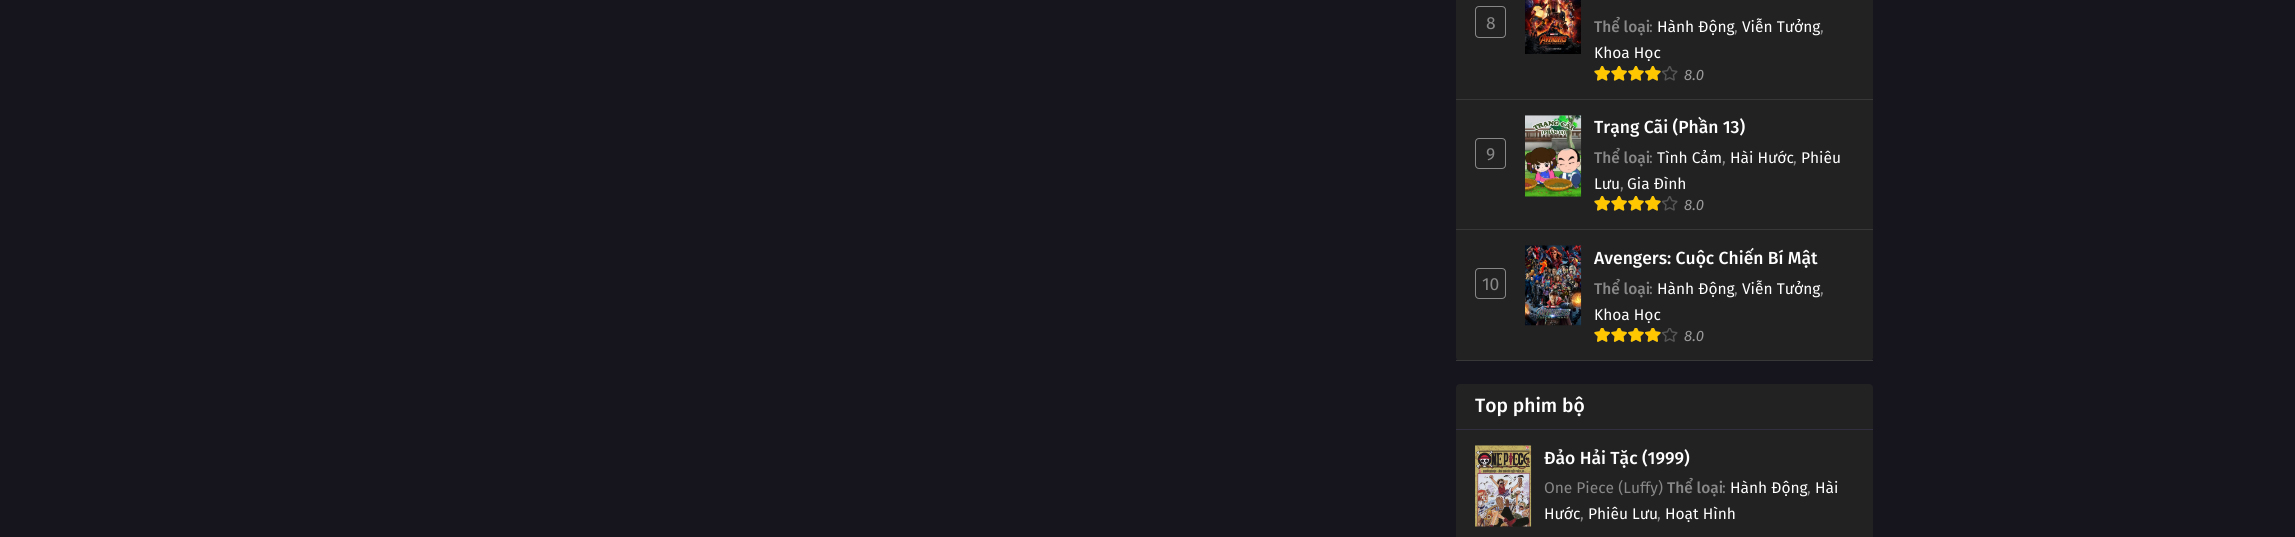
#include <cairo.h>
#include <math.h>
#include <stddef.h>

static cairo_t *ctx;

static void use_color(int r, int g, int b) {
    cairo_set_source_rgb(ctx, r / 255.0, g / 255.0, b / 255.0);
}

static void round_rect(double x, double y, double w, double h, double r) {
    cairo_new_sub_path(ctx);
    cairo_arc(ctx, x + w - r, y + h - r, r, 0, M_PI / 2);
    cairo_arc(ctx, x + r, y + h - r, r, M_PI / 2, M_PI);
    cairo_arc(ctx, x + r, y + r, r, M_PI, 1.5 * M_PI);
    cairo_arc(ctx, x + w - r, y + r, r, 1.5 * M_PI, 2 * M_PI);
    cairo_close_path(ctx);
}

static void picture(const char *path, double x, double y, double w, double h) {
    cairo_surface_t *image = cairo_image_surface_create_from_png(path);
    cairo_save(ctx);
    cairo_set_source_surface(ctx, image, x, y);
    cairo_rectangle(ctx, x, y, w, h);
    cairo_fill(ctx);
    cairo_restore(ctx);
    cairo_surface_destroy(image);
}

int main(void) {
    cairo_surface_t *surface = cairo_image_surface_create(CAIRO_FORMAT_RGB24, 2295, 537);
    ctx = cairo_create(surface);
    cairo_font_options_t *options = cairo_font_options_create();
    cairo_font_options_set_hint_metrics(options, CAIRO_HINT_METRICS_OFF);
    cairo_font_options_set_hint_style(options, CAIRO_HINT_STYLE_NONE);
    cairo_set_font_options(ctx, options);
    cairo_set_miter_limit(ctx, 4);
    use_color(22, 21, 29);
    cairo_paint(ctx);
    use_color(34, 34, 34);
    round_rect(1456, -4, 417, 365, 4);
    cairo_fill(ctx);
    use_color(56, 56, 56);
    cairo_rectangle(ctx, 1456, 99, 417, 1);
    cairo_fill(ctx);
    round_rect(1475.5, 6.5, 30, 31, 3.5);
    use_color(136, 136, 136);
    cairo_set_line_width(ctx, 1);
    cairo_stroke(ctx);
    cairo_select_font_face(ctx, "Fira Sans", CAIRO_FONT_SLANT_NORMAL, CAIRO_FONT_WEIGHT_NORMAL);
    cairo_set_font_size(ctx, 17.5);
    cairo_move_to(ctx, 1486, 29);
    cairo_show_text(ctx, "8");
    picture("img1.png", 1525, 0, 56, 54);
    cairo_select_font_face(ctx, "Fira Sans Medium", CAIRO_FONT_SLANT_NORMAL, CAIRO_FONT_WEIGHT_NORMAL);
    cairo_set_font_size(ctx, 15.5);
    cairo_move_to(ctx, 1594, 32);
    cairo_show_text(ctx, "Thể loại");
    cairo_select_font_face(ctx, "Fira Sans", CAIRO_FONT_SLANT_NORMAL, CAIRO_FONT_WEIGHT_NORMAL);
    cairo_move_to(ctx, 1649, 32);
    cairo_show_text(ctx, ":");
    use_color(255, 255, 255);
    cairo_move_to(ctx, 1657, 32);
    cairo_show_text(ctx, "Hành Động");
    use_color(136, 136, 136);
    cairo_move_to(ctx, 1734, 32);
    cairo_show_text(ctx, ",");
    use_color(255, 255, 255);
    cairo_move_to(ctx, 1742, 32);
    cairo_show_text(ctx, "Viễn Tưởng");
    use_color(136, 136, 136);
    cairo_move_to(ctx, 1820, 32);
    cairo_show_text(ctx, ",");
    use_color(255, 255, 255);
    cairo_move_to(ctx, 1594, 58);
    cairo_show_text(ctx, "Khoa Học");
    picture("img2.png", 1594, 66, 84, 15);
    picture("img3.png", 1594, 66, 67, 15);
    cairo_select_font_face(ctx, "Fira Sans", CAIRO_FONT_SLANT_ITALIC, CAIRO_FONT_WEIGHT_NORMAL);
    cairo_set_font_size(ctx, 15);
    use_color(153, 153, 153);
    cairo_move_to(ctx, 1684, 80);
    cairo_show_text(ctx, "8.0");
    use_color(56, 56, 56);
    cairo_rectangle(ctx, 1456, 229, 417, 1);
    cairo_fill(ctx);
    round_rect(1475.5, 138.5, 30, 30, 3.5);
    use_color(136, 136, 136);
    cairo_stroke(ctx);
    cairo_select_font_face(ctx, "Fira Sans", CAIRO_FONT_SLANT_NORMAL, CAIRO_FONT_WEIGHT_NORMAL);
    cairo_set_font_size(ctx, 17.5);
    cairo_move_to(ctx, 1486, 160);
    cairo_show_text(ctx, "9");
    picture("img4.png", 1525, 115, 57, 82);
    cairo_select_font_face(ctx, "Fira Sans Medium", CAIRO_FONT_SLANT_NORMAL, CAIRO_FONT_WEIGHT_NORMAL);
    use_color(255, 255, 255);
    cairo_move_to(ctx, 1594, 133);
    cairo_show_text(ctx, "Trạng Cãi (Phần 13)");
    cairo_set_font_size(ctx, 15.5);
    use_color(136, 136, 136);
    cairo_move_to(ctx, 1594, 163);
    cairo_show_text(ctx, "Thể loại");
    cairo_select_font_face(ctx, "Fira Sans", CAIRO_FONT_SLANT_NORMAL, CAIRO_FONT_WEIGHT_NORMAL);
    cairo_move_to(ctx, 1649, 163);
    cairo_show_text(ctx, ":");
    use_color(255, 255, 255);
    cairo_move_to(ctx, 1657, 163);
    cairo_show_text(ctx, "Tình Cảm");
    use_color(136, 136, 136);
    cairo_move_to(ctx, 1722, 163);
    cairo_show_text(ctx, ",");
    use_color(255, 255, 255);
    cairo_move_to(ctx, 1730, 163);
    cairo_show_text(ctx, "Hài Hước");
    use_color(136, 136, 136);
    cairo_move_to(ctx, 1793, 163);
    cairo_show_text(ctx, ",");
    use_color(255, 255, 255);
    cairo_move_to(ctx, 1801, 163);
    cairo_show_text(ctx, "Phiêu");
    cairo_move_to(ctx, 1594, 189);
    cairo_show_text(ctx, "Lưu");
    use_color(136, 136, 136);
    cairo_move_to(ctx, 1620, 189);
    cairo_show_text(ctx, ",");
    use_color(255, 255, 255);
    cairo_move_to(ctx, 1627, 189);
    cairo_show_text(ctx, "Gia Đình");
    picture("img2.png", 1594, 196, 84, 15);
    picture("img3.png", 1594, 196, 67, 15);
    cairo_select_font_face(ctx, "Fira Sans", CAIRO_FONT_SLANT_ITALIC, CAIRO_FONT_WEIGHT_NORMAL);
    cairo_set_font_size(ctx, 15);
    use_color(153, 153, 153);
    cairo_move_to(ctx, 1684, 210);
    cairo_show_text(ctx, "8.0");
    use_color(56, 56, 56);
    cairo_rectangle(ctx, 1456, 360, 417, 1);
    cairo_fill(ctx);
    round_rect(1475.5, 268.5, 30, 30, 3.5);
    use_color(136, 136, 136);
    cairo_stroke(ctx);
    cairo_select_font_face(ctx, "Fira Sans", CAIRO_FONT_SLANT_NORMAL, CAIRO_FONT_WEIGHT_NORMAL);
    cairo_set_font_size(ctx, 17.5);
    cairo_move_to(ctx, 1482, 290);
    cairo_show_text(ctx, "10");
    picture("img5.png", 1525, 245, 57, 81);
    cairo_select_font_face(ctx, "Fira Sans Medium", CAIRO_FONT_SLANT_NORMAL, CAIRO_FONT_WEIGHT_NORMAL);
    use_color(255, 255, 255);
    cairo_move_to(ctx, 1594, 264);
    cairo_show_text(ctx, "Avengers: Cuộc Chiến Bí Mật");
    cairo_set_font_size(ctx, 15.5);
    use_color(136, 136, 136);
    cairo_move_to(ctx, 1594, 294);
    cairo_show_text(ctx, "Thể loại");
    cairo_select_font_face(ctx, "Fira Sans", CAIRO_FONT_SLANT_NORMAL, CAIRO_FONT_WEIGHT_NORMAL);
    cairo_move_to(ctx, 1649, 294);
    cairo_show_text(ctx, ":");
    use_color(255, 255, 255);
    cairo_move_to(ctx, 1657, 294);
    cairo_show_text(ctx, "Hành Động");
    use_color(136, 136, 136);
    cairo_move_to(ctx, 1734, 294);
    cairo_show_text(ctx, ",");
    use_color(255, 255, 255);
    cairo_move_to(ctx, 1742, 294);
    cairo_show_text(ctx, "Viễn Tưởng");
    use_color(136, 136, 136);
    cairo_move_to(ctx, 1820, 294);
    cairo_show_text(ctx, ",");
    use_color(255, 255, 255);
    cairo_move_to(ctx, 1594, 320);
    cairo_show_text(ctx, "Khoa Học");
    picture("img6.png", 1594, 328, 84, 14);
    picture("img7.png", 1594, 328, 67, 14);
    cairo_select_font_face(ctx, "Fira Sans", CAIRO_FONT_SLANT_ITALIC, CAIRO_FONT_WEIGHT_NORMAL);
    cairo_set_font_size(ctx, 15);
    use_color(153, 153, 153);
    cairo_move_to(ctx, 1684, 341);
    cairo_show_text(ctx, "8.0");
    use_color(34, 34, 34);
    round_rect(1456, 384, 417, 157, 4);
    cairo_fill(ctx);
    use_color(49, 47, 64);
    cairo_rectangle(ctx, 1456, 429, 417, 1);
    cairo_fill(ctx);
    cairo_select_font_face(ctx, "Fira Sans Medium", CAIRO_FONT_SLANT_NORMAL, CAIRO_FONT_WEIGHT_NORMAL);
    cairo_set_font_size(ctx, 19.25);
    use_color(255, 255, 255);
    cairo_move_to(ctx, 1475, 412);
    cairo_show_text(ctx, "Top phim bộ");
    picture("img8.png", 1475, 445, 57, 82);
    cairo_set_font_size(ctx, 17.5);
    cairo_move_to(ctx, 1544, 464);
    cairo_show_text(ctx, "Đảo Hải Tặc (1999)");
    cairo_select_font_face(ctx, "Fira Sans", CAIRO_FONT_SLANT_NORMAL, CAIRO_FONT_WEIGHT_NORMAL);
    cairo_set_font_size(ctx, 15.5);
    use_color(136, 136, 136);
    cairo_move_to(ctx, 1544, 493);
    cairo_show_text(ctx, "One Piece (Luffy)");
    cairo_select_font_face(ctx, "Fira Sans Medium", CAIRO_FONT_SLANT_NORMAL, CAIRO_FONT_WEIGHT_NORMAL);
    cairo_move_to(ctx, 1667, 493);
    cairo_show_text(ctx, "Thể loại");
    cairo_select_font_face(ctx, "Fira Sans", CAIRO_FONT_SLANT_NORMAL, CAIRO_FONT_WEIGHT_NORMAL);
    cairo_move_to(ctx, 1722, 493);
    cairo_show_text(ctx, ":");
    use_color(255, 255, 255);
    cairo_move_to(ctx, 1730, 493);
    cairo_show_text(ctx, "Hành Động");
    use_color(136, 136, 136);
    cairo_move_to(ctx, 1807, 493);
    cairo_show_text(ctx, ",");
    use_color(255, 255, 255);
    cairo_move_to(ctx, 1815, 493);
    cairo_show_text(ctx, "Hài");
    cairo_move_to(ctx, 1544, 519);
    cairo_show_text(ctx, "Hước");
    use_color(136, 136, 136);
    cairo_move_to(ctx, 1580, 519);
    cairo_show_text(ctx, ",");
    use_color(255, 255, 255);
    cairo_move_to(ctx, 1588, 519);
    cairo_show_text(ctx, "Phiêu Lưu");
    use_color(136, 136, 136);
    cairo_move_to(ctx, 1657, 519);
    cairo_show_text(ctx, ",");
    use_color(255, 255, 255);
    cairo_move_to(ctx, 1665, 519);
    cairo_show_text(ctx, "Hoạt Hình");
    cairo_surface_write_to_png(surface, "result.png");
    cairo_font_options_destroy(options);
    cairo_destroy(ctx);
    cairo_surface_destroy(surface);
    return 0;
}
